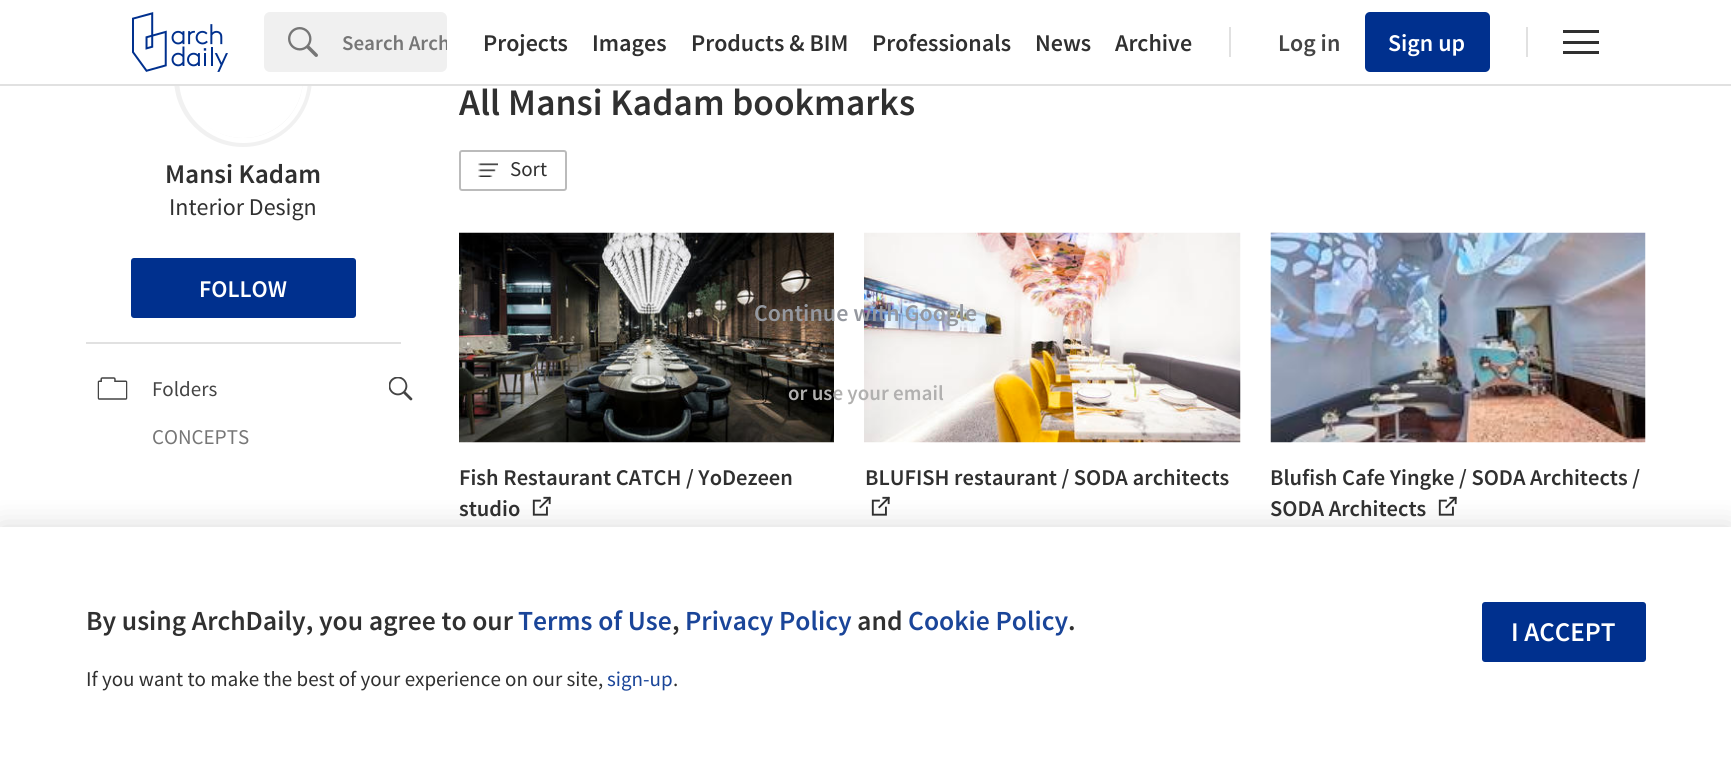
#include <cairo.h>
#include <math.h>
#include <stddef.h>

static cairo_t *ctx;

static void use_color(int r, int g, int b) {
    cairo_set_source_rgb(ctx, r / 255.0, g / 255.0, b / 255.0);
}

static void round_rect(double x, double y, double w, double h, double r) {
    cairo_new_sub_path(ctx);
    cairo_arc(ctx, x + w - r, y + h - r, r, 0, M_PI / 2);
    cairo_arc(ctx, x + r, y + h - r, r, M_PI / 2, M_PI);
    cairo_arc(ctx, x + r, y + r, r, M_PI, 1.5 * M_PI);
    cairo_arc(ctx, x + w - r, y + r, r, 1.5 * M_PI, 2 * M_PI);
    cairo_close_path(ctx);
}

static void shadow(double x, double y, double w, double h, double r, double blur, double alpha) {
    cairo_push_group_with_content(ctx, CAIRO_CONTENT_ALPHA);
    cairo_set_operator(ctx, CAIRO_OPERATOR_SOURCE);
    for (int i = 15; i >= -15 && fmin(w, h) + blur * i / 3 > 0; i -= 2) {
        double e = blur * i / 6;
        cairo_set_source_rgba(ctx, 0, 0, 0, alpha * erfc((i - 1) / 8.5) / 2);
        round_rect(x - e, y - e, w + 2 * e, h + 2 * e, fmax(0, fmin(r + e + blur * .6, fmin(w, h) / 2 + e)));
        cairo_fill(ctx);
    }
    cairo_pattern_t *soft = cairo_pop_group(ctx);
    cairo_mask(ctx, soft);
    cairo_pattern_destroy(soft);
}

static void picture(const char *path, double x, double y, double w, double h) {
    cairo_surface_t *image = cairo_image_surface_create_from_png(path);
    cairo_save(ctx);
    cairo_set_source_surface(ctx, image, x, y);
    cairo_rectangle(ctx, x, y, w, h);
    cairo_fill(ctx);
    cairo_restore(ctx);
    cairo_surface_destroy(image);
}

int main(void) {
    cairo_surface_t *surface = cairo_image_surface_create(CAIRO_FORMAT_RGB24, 1731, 763);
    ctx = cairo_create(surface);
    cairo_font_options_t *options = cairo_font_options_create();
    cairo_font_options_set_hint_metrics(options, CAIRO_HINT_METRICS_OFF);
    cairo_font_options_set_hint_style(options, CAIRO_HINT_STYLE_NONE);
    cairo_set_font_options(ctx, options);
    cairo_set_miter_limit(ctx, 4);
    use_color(255, 255, 255);
    cairo_paint(ctx);
    cairo_arc(ctx, 243, 78, 64.5, 0, 2 * M_PI);
    use_color(241, 241, 241);
    cairo_set_line_width(ctx, 9);
    cairo_stroke(ctx);
    cairo_arc(ctx, 243.5, 78.5, 62, 0, 2 * M_PI);
    use_color(255, 255, 255);
    cairo_set_line_width(ctx, 5);
    cairo_stroke(ctx);
    cairo_rectangle(ctx, 174, 9, 138, 75);
    cairo_fill(ctx);
    use_color(225, 225, 225);
    cairo_rectangle(ctx, 0, 84, 1731, 2);
    cairo_fill(ctx);
    picture("img1.png", 132, 12, 96, 60);
    use_color(240, 240, 240);
    round_rect(264, 12, 183, 60, 6);
    cairo_fill(ctx);
    picture("img2.png", 288, 27, 30, 30);
    cairo_save(ctx);
    cairo_rectangle(ctx, 342, 29, 105, 27);
    cairo_clip(ctx);
    cairo_select_font_face(ctx, "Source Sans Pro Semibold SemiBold", CAIRO_FONT_SLANT_NORMAL, CAIRO_FONT_WEIGHT_NORMAL);
    cairo_set_font_size(ctx, 21);
    use_color(118, 118, 118);
    cairo_move_to(ctx, 342, 50);
    cairo_show_text(ctx, "Search Arch");
    cairo_restore(ctx);
    cairo_select_font_face(ctx, "Source Sans Pro Semibold SemiBold", CAIRO_FONT_SLANT_NORMAL, CAIRO_FONT_WEIGHT_NORMAL);
    cairo_set_font_size(ctx, 24);
    use_color(48, 48, 48);
    cairo_move_to(ctx, 483, 51);
    cairo_show_text(ctx, "Projects");
    cairo_move_to(ctx, 592, 51);
    cairo_show_text(ctx, "Images");
    cairo_move_to(ctx, 691, 51);
    cairo_show_text(ctx, "Products & BIM");
    cairo_move_to(ctx, 872, 51);
    cairo_show_text(ctx, "Professionals");
    cairo_move_to(ctx, 1035, 51);
    cairo_show_text(ctx, "News");
    cairo_move_to(ctx, 1115, 51);
    cairo_show_text(ctx, "Archive");
    use_color(225, 225, 225);
    cairo_rectangle(ctx, 1229, 27, 2, 30);
    cairo_fill(ctx);
    use_color(68, 68, 68);
    cairo_move_to(ctx, 1278, 51);
    cairo_show_text(ctx, "Log in");
    use_color(0, 48, 142);
    round_rect(1365, 12, 125, 60, 5);
    cairo_fill(ctx);
    use_color(255, 255, 255);
    cairo_move_to(ctx, 1388, 51);
    cairo_show_text(ctx, "Sign up");
    use_color(225, 225, 225);
    cairo_rectangle(ctx, 1526, 27, 2, 30);
    cairo_fill(ctx);
    use_color(48, 48, 48);
    cairo_rectangle(ctx, 1563, 41, 36, 3);
    cairo_fill(ctx);
    cairo_rectangle(ctx, 1563, 30, 36, 3);
    cairo_fill(ctx);
    cairo_rectangle(ctx, 1563, 51, 36, 3);
    cairo_fill(ctx);
    picture("img7.png", 532, 496, 19, 20);
    picture("img7.png", 871, 496, 19, 20);
    picture("img7.png", 1438, 496, 19, 20);
    use_color(0, 0, 0);
    shadow(0, 527, 1731, 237, 0, 15, 0.15);
    use_color(255, 255, 255);
    cairo_rectangle(ctx, 0, 527, 1731, 236);
    cairo_fill(ctx);
    cairo_set_font_size(ctx, 27.6);
    use_color(48, 48, 48);
    cairo_move_to(ctx, 86, 630);
    cairo_show_text(ctx, "By using ArchDaily, you agree to our");
    use_color(26, 69, 153);
    cairo_move_to(ctx, 518, 630);
    cairo_show_text(ctx, "Terms of Use");
    use_color(48, 48, 48);
    cairo_move_to(ctx, 672, 630);
    cairo_show_text(ctx, ",");
    use_color(26, 69, 153);
    cairo_move_to(ctx, 685, 630);
    cairo_show_text(ctx, "Privacy Policy");
    use_color(48, 48, 48);
    cairo_move_to(ctx, 857, 630);
    cairo_show_text(ctx, "and");
    use_color(26, 69, 153);
    cairo_move_to(ctx, 908, 630);
    cairo_show_text(ctx, "Cookie Policy");
    use_color(48, 48, 48);
    cairo_move_to(ctx, 1068, 630);
    cairo_show_text(ctx, ".");
    cairo_select_font_face(ctx, "Source Sans Pro", CAIRO_FONT_SLANT_NORMAL, CAIRO_FONT_WEIGHT_NORMAL);
    cairo_set_font_size(ctx, 21);
    cairo_move_to(ctx, 86, 686);
    cairo_show_text(ctx, "If you want to make the best of your experience on our site,");
    use_color(26, 69, 153);
    cairo_move_to(ctx, 607, 686);
    cairo_show_text(ctx, "sign-up");
    use_color(48, 48, 48);
    cairo_move_to(ctx, 673, 686);
    cairo_show_text(ctx, ".");
    use_color(0, 48, 142);
    round_rect(1482, 602, 164, 60, 3);
    cairo_fill(ctx);
    cairo_select_font_face(ctx, "Source Sans Pro Semibold SemiBold", CAIRO_FONT_SLANT_NORMAL, CAIRO_FONT_WEIGHT_NORMAL);
    cairo_set_font_size(ctx, 27);
    use_color(255, 255, 255);
    cairo_move_to(ctx, 1511, 641);
    cairo_show_text(ctx, "I ACCEPT");
    use_color(48, 48, 48);
    cairo_move_to(ctx, 165, 183);
    cairo_show_text(ctx, "Mansi Kadam");
    cairo_select_font_face(ctx, "Source Sans Pro", CAIRO_FONT_SLANT_NORMAL, CAIRO_FONT_WEIGHT_NORMAL);
    cairo_set_font_size(ctx, 24);
    cairo_move_to(ctx, 169, 215);
    cairo_show_text(ctx, "Interior Design");
    use_color(0, 48, 142);
    round_rect(131, 258, 225, 60, 3);
    cairo_fill(ctx);
    cairo_select_font_face(ctx, "Source Sans Pro Semibold SemiBold", CAIRO_FONT_SLANT_NORMAL, CAIRO_FONT_WEIGHT_NORMAL);
    use_color(255, 255, 255);
    cairo_move_to(ctx, 199, 297);
    cairo_show_text(ctx, "FOLLOW");
    use_color(225, 225, 225);
    cairo_rectangle(ctx, 86, 342, 315, 2);
    cairo_fill(ctx);
    picture("img3.png", 97, 377, 31, 23);
    cairo_select_font_face(ctx, "Source Sans Pro", CAIRO_FONT_SLANT_NORMAL, CAIRO_FONT_WEIGHT_NORMAL);
    cairo_set_font_size(ctx, 21);
    use_color(68, 68, 68);
    cairo_move_to(ctx, 152, 396);
    cairo_show_text(ctx, "Folders");
    picture("img4.png", 389, 377, 24, 24);
    use_color(118, 118, 118);
    cairo_move_to(ctx, 152, 444);
    cairo_show_text(ctx, "CONCEPTS");
    cairo_select_font_face(ctx, "Source Sans Pro Semibold SemiBold", CAIRO_FONT_SLANT_NORMAL, CAIRO_FONT_WEIGHT_NORMAL);
    cairo_set_font_size(ctx, 37.5);
    use_color(48, 48, 48);
    cairo_move_to(ctx, 459, 115);
    cairo_show_text(ctx, "All Mansi Kadam bookmarks");
    round_rect(460, 151, 106, 39, 2);
    use_color(187, 187, 187);
    cairo_set_line_width(ctx, 2);
    cairo_stroke(ctx);
    picture("img5.png", 478, 163, 20, 14);
    cairo_select_font_face(ctx, "Source Sans Pro", CAIRO_FONT_SLANT_NORMAL, CAIRO_FONT_WEIGHT_NORMAL);
    cairo_set_font_size(ctx, 21);
    use_color(48, 48, 48);
    cairo_move_to(ctx, 510, 176);
    cairo_show_text(ctx, "Sort");
    picture("img6.png", 459, 232, 375, 211);
    cairo_select_font_face(ctx, "Source Sans Pro Semibold SemiBold", CAIRO_FONT_SLANT_NORMAL, CAIRO_FONT_WEIGHT_NORMAL);
    cairo_set_font_size(ctx, 22.5);
    cairo_move_to(ctx, 459, 485);
    cairo_show_text(ctx, "Fish Restaurant CATCH / YoDezeen");
    cairo_move_to(ctx, 459, 516);
    cairo_show_text(ctx, "studio");
    picture("img8.png", 864, 232, 377, 211);
    cairo_move_to(ctx, 865, 485);
    cairo_show_text(ctx, "BLUFISH restaurant / SODA architects");
    picture("img9.png", 1270, 232, 376, 211);
    cairo_move_to(ctx, 1270, 485);
    cairo_show_text(ctx, "Blufish Cafe Yingke / SODA Architects /");
    cairo_move_to(ctx, 1270, 516);
    cairo_show_text(ctx, "SODA Architects");
    cairo_set_font_size(ctx, 24);
    use_color(149, 152, 159);
    cairo_move_to(ctx, 754, 321);
    cairo_show_text(ctx, "Continue with Google");
    cairo_set_font_size(ctx, 21);
    use_color(177, 176, 175);
    cairo_move_to(ctx, 788, 400);
    cairo_show_text(ctx, "or use your email");
    cairo_surface_write_to_png(surface, "result.png");
    cairo_font_options_destroy(options);
    cairo_destroy(ctx);
    cairo_surface_destroy(surface);
    return 0;
}
